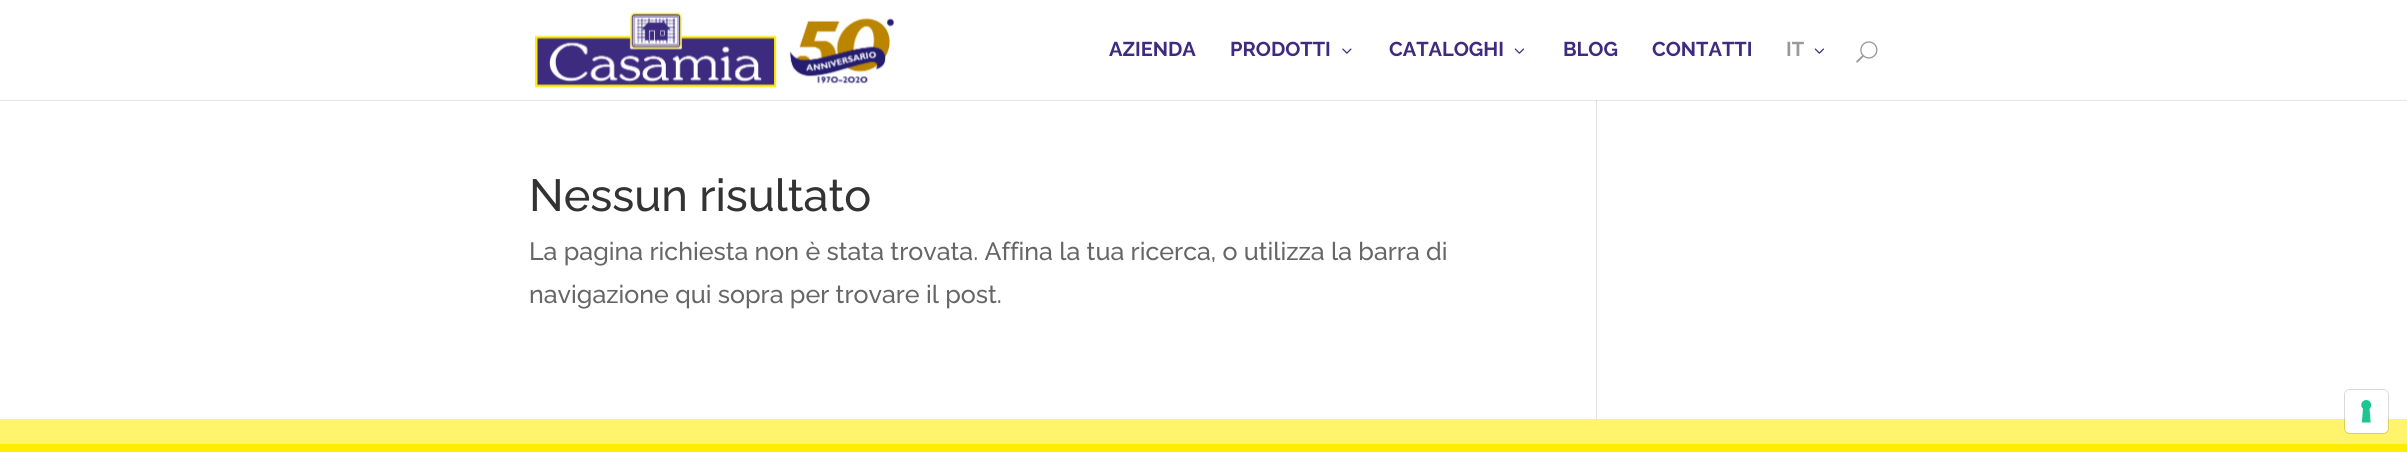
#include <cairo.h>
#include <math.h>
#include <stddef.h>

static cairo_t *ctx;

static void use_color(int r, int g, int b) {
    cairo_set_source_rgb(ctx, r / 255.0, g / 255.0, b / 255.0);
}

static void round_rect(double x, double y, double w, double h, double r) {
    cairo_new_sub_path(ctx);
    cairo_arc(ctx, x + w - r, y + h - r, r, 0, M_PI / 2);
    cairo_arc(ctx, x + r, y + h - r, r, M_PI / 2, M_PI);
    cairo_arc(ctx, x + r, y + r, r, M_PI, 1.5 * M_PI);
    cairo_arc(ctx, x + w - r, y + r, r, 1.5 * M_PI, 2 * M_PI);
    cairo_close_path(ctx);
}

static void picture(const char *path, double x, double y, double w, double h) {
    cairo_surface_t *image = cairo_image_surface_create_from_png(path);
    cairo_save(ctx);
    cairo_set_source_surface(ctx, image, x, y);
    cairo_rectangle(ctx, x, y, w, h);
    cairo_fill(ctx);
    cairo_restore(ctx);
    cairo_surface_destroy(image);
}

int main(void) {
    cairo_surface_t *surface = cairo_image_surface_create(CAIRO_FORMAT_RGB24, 2407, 452);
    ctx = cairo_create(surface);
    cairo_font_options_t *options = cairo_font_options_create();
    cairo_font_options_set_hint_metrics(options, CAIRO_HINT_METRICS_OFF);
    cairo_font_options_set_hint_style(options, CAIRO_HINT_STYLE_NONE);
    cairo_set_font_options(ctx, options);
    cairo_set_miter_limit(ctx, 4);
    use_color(255, 255, 255);
    cairo_paint(ctx);
    use_color(226, 226, 226);
    cairo_rectangle(ctx, 1596, 100, 1, 319);
    cairo_fill(ctx);
    cairo_set_source_rgba(ctx, 0, 0, 0, 0.1);
    cairo_new_path(ctx);
    cairo_move_to(ctx, 0, 100);
    cairo_line_to(ctx, 0, 101);
    cairo_line_to(ctx, 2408, 101);
    cairo_line_to(ctx, 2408, 1);
    cairo_line_to(ctx, 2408, 100);
    cairo_close_path(ctx);
    cairo_fill(ctx);
    picture("img1.png", 535, 12, 360, 76);
    cairo_select_font_face(ctx, "Raleway", CAIRO_FONT_SLANT_NORMAL, CAIRO_FONT_WEIGHT_BOLD);
    cairo_set_font_size(ctx, 20);
    use_color(61, 43, 128);
    cairo_move_to(ctx, 1109, 56);
    cairo_show_text(ctx, "AZIENDA");
    cairo_move_to(ctx, 1230, 56);
    cairo_show_text(ctx, "PRODOTTI");
    picture("img2.png", 1342, 48, 10, 6);
    cairo_move_to(ctx, 1389, 56);
    cairo_show_text(ctx, "CATALOGHI");
    picture("img3.png", 1514, 48, 10, 6);
    cairo_move_to(ctx, 1563, 56);
    cairo_show_text(ctx, "BLOG");
    cairo_move_to(ctx, 1652, 56);
    cairo_show_text(ctx, "CONTATTI");
    use_color(153, 153, 153);
    cairo_move_to(ctx, 1786, 56);
    cairo_show_text(ctx, "IT");
    picture("img3.png", 1814, 48, 10, 6);
    picture("img4.png", 1856, 41, 22, 22);
    cairo_select_font_face(ctx, "Raleway Medium", CAIRO_FONT_SLANT_NORMAL, CAIRO_FONT_WEIGHT_NORMAL);
    cairo_set_font_size(ctx, 45);
    use_color(51, 51, 51);
    cairo_move_to(ctx, 529, 211);
    cairo_show_text(ctx, "Nessun risultato");
    cairo_set_font_size(ctx, 25);
    use_color(102, 102, 102);
    cairo_move_to(ctx, 529, 260);
    cairo_show_text(ctx, "La pagina richiesta non è stata trovata. Affina la tua ricerca, o utilizza la barra di");
    cairo_move_to(ctx, 529, 303);
    cairo_show_text(ctx, "navigazione qui sopra per trovare il post.");
    use_color(255, 236, 0);
    cairo_rectangle(ctx, 0, 444, 2407, 8);
    cairo_fill(ctx);
    use_color(255, 244, 107);
    cairo_rectangle(ctx, 0, 419, 2407, 25);
    cairo_fill(ctx);
    round_rect(2344.5, 389.5, 44, 44, 5.5);
    cairo_set_source_rgba(ctx, 0, 0, 0, 0.15);
    cairo_set_line_width(ctx, 1);
    cairo_stroke(ctx);
    use_color(255, 255, 255);
    round_rect(2345, 390, 43, 43, 5);
    cairo_fill(ctx);
    picture("img5.png", 2361, 400, 11, 23);
    cairo_surface_write_to_png(surface, "result.png");
    cairo_font_options_destroy(options);
    cairo_destroy(ctx);
    cairo_surface_destroy(surface);
    return 0;
}
